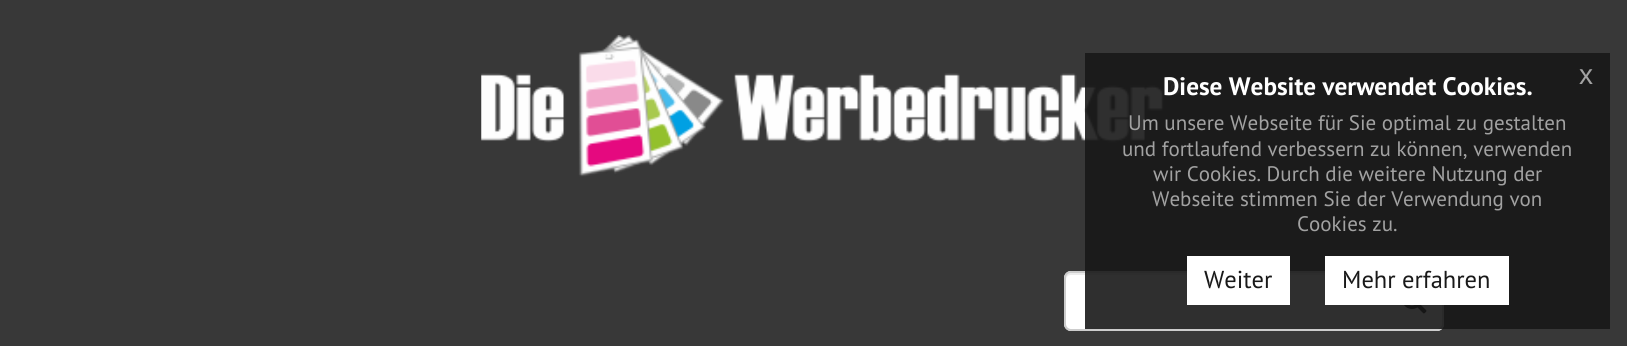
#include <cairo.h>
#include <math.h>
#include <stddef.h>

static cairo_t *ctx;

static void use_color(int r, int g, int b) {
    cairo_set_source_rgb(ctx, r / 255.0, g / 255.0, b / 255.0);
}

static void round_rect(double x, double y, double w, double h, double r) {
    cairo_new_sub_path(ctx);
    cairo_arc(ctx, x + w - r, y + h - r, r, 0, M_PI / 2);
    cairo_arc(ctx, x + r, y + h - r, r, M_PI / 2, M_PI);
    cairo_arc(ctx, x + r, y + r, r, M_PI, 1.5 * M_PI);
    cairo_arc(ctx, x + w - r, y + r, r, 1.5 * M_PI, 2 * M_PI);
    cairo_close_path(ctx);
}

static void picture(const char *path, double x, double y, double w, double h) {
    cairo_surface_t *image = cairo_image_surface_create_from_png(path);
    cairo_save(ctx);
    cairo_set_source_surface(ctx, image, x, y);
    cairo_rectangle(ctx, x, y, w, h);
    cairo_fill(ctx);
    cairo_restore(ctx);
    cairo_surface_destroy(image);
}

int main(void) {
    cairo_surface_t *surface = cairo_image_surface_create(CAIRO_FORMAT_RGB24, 1627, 346);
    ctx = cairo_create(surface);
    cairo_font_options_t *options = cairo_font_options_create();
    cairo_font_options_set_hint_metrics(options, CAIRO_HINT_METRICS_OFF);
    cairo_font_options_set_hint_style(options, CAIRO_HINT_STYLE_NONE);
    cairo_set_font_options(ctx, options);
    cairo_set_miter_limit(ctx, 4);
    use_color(56, 56, 56);
    cairo_paint(ctx);
    picture("img1.png", 481, 35, 701, 142);
    use_color(255, 255, 255);
    round_rect(1064, 271, 380, 60, 7);
    cairo_fill(ctx);
    use_color(236, 236, 236);
    cairo_new_path(ctx);
    cairo_move_to(ctx, 1071, 275);
    cairo_line_to(ctx, 1437, 275);
    cairo_curve_to(ctx, 1440, 275, 1442, 277, 1442, 280);
    cairo_line_to(ctx, 1442, 278);
    cairo_curve_to(ctx, 1442, 275, 1440, 273, 1437, 273);
    cairo_line_to(ctx, 1071, 273);
    cairo_curve_to(ctx, 1068, 273, 1066, 275, 1066, 278);
    cairo_line_to(ctx, 1066, 280);
    cairo_curve_to(ctx, 1066, 277, 1068, 275, 1071, 275);
    cairo_close_path(ctx);
    cairo_fill(ctx);
    round_rect(1065, 272, 378, 58, 6);
    use_color(204, 204, 204);
    cairo_stroke(ctx);
    picture("img2.png", 1404, 305, 23, 9);
    cairo_set_source_rgba(ctx, 0.098, 0.098, 0.098, 0.9);
    cairo_rectangle(ctx, 1085, 53, 525, 276);
    cairo_fill(ctx);
    cairo_select_font_face(ctx, "PT Sans", CAIRO_FONT_SLANT_NORMAL, CAIRO_FONT_WEIGHT_BOLD);
    cairo_set_font_size(ctx, 25.25);
    use_color(255, 255, 255);
    cairo_move_to(ctx, 1163, 95);
    cairo_show_text(ctx, "Diese Website verwendet Cookies.");
    cairo_select_font_face(ctx, "Liberation Sans", CAIRO_FONT_SLANT_NORMAL, CAIRO_FONT_WEIGHT_NORMAL);
    cairo_set_font_size(ctx, 28);
    use_color(162, 162, 162);
    cairo_move_to(ctx, 1579, 84);
    cairo_show_text(ctx, "x");
    cairo_select_font_face(ctx, "PT Sans", CAIRO_FONT_SLANT_NORMAL, CAIRO_FONT_WEIGHT_NORMAL);
    cairo_set_font_size(ctx, 21);
    cairo_move_to(ctx, 1128, 130);
    cairo_show_text(ctx, "Um unsere Webseite für Sie optimal zu gestalten");
    cairo_move_to(ctx, 1122, 156);
    cairo_show_text(ctx, "und fortlaufend verbessern zu können, verwenden");
    cairo_move_to(ctx, 1153, 181);
    cairo_show_text(ctx, "wir Cookies. Durch die weitere Nutzung der");
    cairo_move_to(ctx, 1152, 206);
    cairo_show_text(ctx, "Webseite stimmen Sie der Verwendung von");
    cairo_move_to(ctx, 1297, 231);
    cairo_show_text(ctx, "Cookies zu.");
    use_color(255, 255, 255);
    cairo_rectangle(ctx, 1187, 256, 103, 49);
    cairo_fill(ctx);
    cairo_set_font_size(ctx, 24.5);
    use_color(25, 25, 25);
    cairo_move_to(ctx, 1204, 288);
    cairo_show_text(ctx, "Weiter");
    use_color(255, 255, 255);
    cairo_rectangle(ctx, 1325, 256, 184, 49);
    cairo_fill(ctx);
    use_color(25, 25, 25);
    cairo_move_to(ctx, 1342, 288);
    cairo_show_text(ctx, "Mehr erfahren");
    cairo_surface_write_to_png(surface, "result.png");
    cairo_font_options_destroy(options);
    cairo_destroy(ctx);
    cairo_surface_destroy(surface);
    return 0;
}
